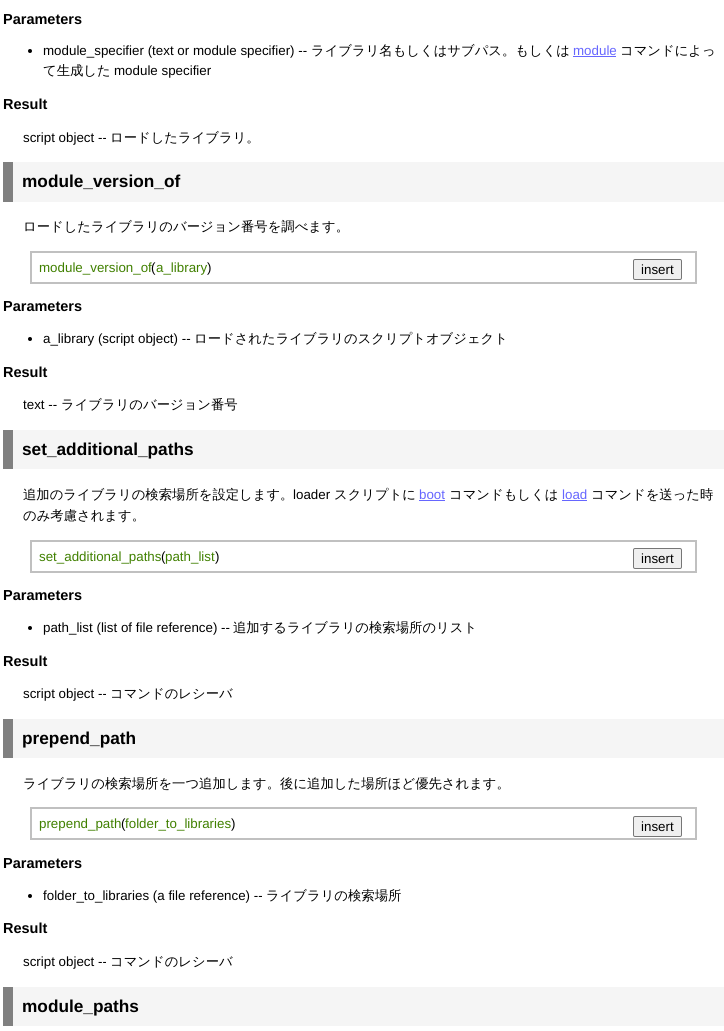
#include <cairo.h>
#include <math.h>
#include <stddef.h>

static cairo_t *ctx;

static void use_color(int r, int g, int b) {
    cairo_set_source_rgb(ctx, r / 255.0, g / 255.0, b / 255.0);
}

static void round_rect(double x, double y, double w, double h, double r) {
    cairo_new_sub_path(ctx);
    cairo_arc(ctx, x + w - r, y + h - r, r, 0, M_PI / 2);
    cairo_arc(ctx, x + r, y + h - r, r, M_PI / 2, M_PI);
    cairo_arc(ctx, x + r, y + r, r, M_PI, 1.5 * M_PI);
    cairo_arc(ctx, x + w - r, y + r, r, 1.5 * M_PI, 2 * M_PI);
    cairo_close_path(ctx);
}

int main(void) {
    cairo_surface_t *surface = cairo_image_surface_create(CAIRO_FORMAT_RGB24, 724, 1031);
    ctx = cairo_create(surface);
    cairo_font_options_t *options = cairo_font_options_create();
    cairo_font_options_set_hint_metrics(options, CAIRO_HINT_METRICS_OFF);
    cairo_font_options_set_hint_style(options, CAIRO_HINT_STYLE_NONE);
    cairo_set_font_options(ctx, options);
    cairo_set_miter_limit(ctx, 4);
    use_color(255, 255, 255);
    cairo_paint(ctx);
    cairo_select_font_face(ctx, "Liberation Sans", CAIRO_FONT_SLANT_NORMAL, CAIRO_FONT_WEIGHT_BOLD);
    cairo_set_font_size(ctx, 14.5);
    use_color(0, 0, 0);
    cairo_move_to(ctx, 3, 24);
    cairo_show_text(ctx, "Parameters");
    cairo_new_path(ctx);
    cairo_arc(ctx, 30, 51, 2, 0, 2 * M_PI);
    cairo_fill(ctx);
    cairo_select_font_face(ctx, "Liberation Sans", CAIRO_FONT_SLANT_NORMAL, CAIRO_FONT_WEIGHT_NORMAL);
    cairo_set_font_size(ctx, 13.35);
    cairo_move_to(ctx, 43, 55);
    cairo_show_text(ctx, "module_specifier (text or module specifier) --");
    cairo_select_font_face(ctx, "WenQuanYi Zen Hei Medium", CAIRO_FONT_SLANT_NORMAL, CAIRO_FONT_WEIGHT_NORMAL);
    cairo_move_to(ctx, 311, 55);
    cairo_show_text(ctx, "ライブラリ名もしくはサブパス。もしくは");
    cairo_select_font_face(ctx, "Liberation Sans", CAIRO_FONT_SLANT_NORMAL, CAIRO_FONT_WEIGHT_NORMAL);
    use_color(102, 102, 255);
    cairo_move_to(ctx, 573, 55);
    cairo_show_text(ctx, "module");
    cairo_rectangle(ctx, 573, 56, 43, 1);
    cairo_fill(ctx);
    cairo_select_font_face(ctx, "WenQuanYi Zen Hei Medium", CAIRO_FONT_SLANT_NORMAL, CAIRO_FONT_WEIGHT_NORMAL);
    use_color(0, 0, 0);
    cairo_move_to(ctx, 620, 55);
    cairo_show_text(ctx, "コマンドによっ");
    cairo_move_to(ctx, 43, 75);
    cairo_show_text(ctx, "て生成した");
    cairo_select_font_face(ctx, "Liberation Sans", CAIRO_FONT_SLANT_NORMAL, CAIRO_FONT_WEIGHT_NORMAL);
    cairo_move_to(ctx, 114, 75);
    cairo_show_text(ctx, "module specifier");
    cairo_select_font_face(ctx, "Liberation Sans", CAIRO_FONT_SLANT_NORMAL, CAIRO_FONT_WEIGHT_BOLD);
    cairo_set_font_size(ctx, 14.5);
    cairo_move_to(ctx, 3, 109);
    cairo_show_text(ctx, "Result");
    cairo_select_font_face(ctx, "Liberation Sans", CAIRO_FONT_SLANT_NORMAL, CAIRO_FONT_WEIGHT_NORMAL);
    cairo_set_font_size(ctx, 13.35);
    cairo_move_to(ctx, 23, 142);
    cairo_show_text(ctx, "script object --");
    cairo_select_font_face(ctx, "WenQuanYi Zen Hei Medium", CAIRO_FONT_SLANT_NORMAL, CAIRO_FONT_WEIGHT_NORMAL);
    cairo_move_to(ctx, 110, 142);
    cairo_show_text(ctx, "ロードしたライブラリ。");
    use_color(245, 245, 245);
    cairo_rectangle(ctx, 13, 162, 711, 40);
    cairo_fill(ctx);
    use_color(128, 128, 128);
    cairo_rectangle(ctx, 3, 162, 10, 40);
    cairo_fill(ctx);
    cairo_select_font_face(ctx, "Liberation Sans", CAIRO_FONT_SLANT_NORMAL, CAIRO_FONT_WEIGHT_BOLD);
    cairo_set_font_size(ctx, 17.25);
    use_color(0, 0, 0);
    cairo_move_to(ctx, 22, 187);
    cairo_show_text(ctx, "module_version_of");
    cairo_select_font_face(ctx, "WenQuanYi Zen Hei Medium", CAIRO_FONT_SLANT_NORMAL, CAIRO_FONT_WEIGHT_NORMAL);
    cairo_set_font_size(ctx, 13.35);
    cairo_move_to(ctx, 23, 231);
    cairo_show_text(ctx, "ロードしたライブラリのバージョン番号を調べます。");
    cairo_rectangle(ctx, 31, 252, 665, 31);
    use_color(192, 192, 192);
    cairo_stroke(ctx);
    cairo_select_font_face(ctx, "Liberation Sans", CAIRO_FONT_SLANT_NORMAL, CAIRO_FONT_WEIGHT_NORMAL);
    use_color(64, 128, 0);
    cairo_move_to(ctx, 39, 272);
    cairo_show_text(ctx, "module_version_of");
    use_color(0, 0, 0);
    cairo_move_to(ctx, 151, 272);
    cairo_show_text(ctx, "(");
    use_color(64, 128, 0);
    cairo_move_to(ctx, 156, 272);
    cairo_show_text(ctx, "a_library");
    use_color(0, 0, 0);
    cairo_move_to(ctx, 207, 272);
    cairo_show_text(ctx, ")");
    use_color(239, 239, 239);
    round_rect(633.5, 259.5, 48, 20, 1.5);
    cairo_fill_preserve(ctx);
    use_color(118, 118, 118);
    cairo_set_line_width(ctx, 1);
    cairo_stroke(ctx);
    use_color(0, 0, 0);
    cairo_move_to(ctx, 641, 274);
    cairo_show_text(ctx, "insert");
    cairo_select_font_face(ctx, "Liberation Sans", CAIRO_FONT_SLANT_NORMAL, CAIRO_FONT_WEIGHT_BOLD);
    cairo_set_font_size(ctx, 14.5);
    cairo_move_to(ctx, 3, 311);
    cairo_show_text(ctx, "Parameters");
    cairo_new_path(ctx);
    cairo_arc(ctx, 30, 339, 2, 0, 2 * M_PI);
    cairo_fill(ctx);
    cairo_select_font_face(ctx, "Liberation Sans", CAIRO_FONT_SLANT_NORMAL, CAIRO_FONT_WEIGHT_NORMAL);
    cairo_set_font_size(ctx, 13.35);
    cairo_move_to(ctx, 43, 343);
    cairo_show_text(ctx, "a_library (script object) --");
    cairo_select_font_face(ctx, "WenQuanYi Zen Hei Medium", CAIRO_FONT_SLANT_NORMAL, CAIRO_FONT_WEIGHT_NORMAL);
    cairo_move_to(ctx, 194, 343);
    cairo_show_text(ctx, "ロードされたライブラリのスクリプトオブジェクト");
    cairo_select_font_face(ctx, "Liberation Sans", CAIRO_FONT_SLANT_NORMAL, CAIRO_FONT_WEIGHT_BOLD);
    cairo_set_font_size(ctx, 14.5);
    cairo_move_to(ctx, 3, 377);
    cairo_show_text(ctx, "Result");
    cairo_select_font_face(ctx, "Liberation Sans", CAIRO_FONT_SLANT_NORMAL, CAIRO_FONT_WEIGHT_NORMAL);
    cairo_set_font_size(ctx, 13.35);
    cairo_move_to(ctx, 23, 409);
    cairo_show_text(ctx, "text --");
    cairo_select_font_face(ctx, "WenQuanYi Zen Hei Medium", CAIRO_FONT_SLANT_NORMAL, CAIRO_FONT_WEIGHT_NORMAL);
    cairo_move_to(ctx, 61, 409);
    cairo_show_text(ctx, "ライブラリのバージョン番号");
    use_color(245, 245, 245);
    cairo_rectangle(ctx, 13, 430, 711, 39);
    cairo_fill(ctx);
    use_color(128, 128, 128);
    cairo_rectangle(ctx, 3, 430, 10, 39);
    cairo_fill(ctx);
    cairo_select_font_face(ctx, "Liberation Sans", CAIRO_FONT_SLANT_NORMAL, CAIRO_FONT_WEIGHT_BOLD);
    cairo_set_font_size(ctx, 17.25);
    use_color(0, 0, 0);
    cairo_move_to(ctx, 22, 455);
    cairo_show_text(ctx, "set_additional_paths");
    cairo_select_font_face(ctx, "WenQuanYi Zen Hei Medium", CAIRO_FONT_SLANT_NORMAL, CAIRO_FONT_WEIGHT_NORMAL);
    cairo_set_font_size(ctx, 13.35);
    cairo_move_to(ctx, 23, 499);
    cairo_show_text(ctx, "追加のライブラリの検索場所を設定します。");
    cairo_select_font_face(ctx, "Liberation Sans", CAIRO_FONT_SLANT_NORMAL, CAIRO_FONT_WEIGHT_NORMAL);
    cairo_move_to(ctx, 293, 499);
    cairo_show_text(ctx, "loader");
    cairo_select_font_face(ctx, "WenQuanYi Zen Hei Medium", CAIRO_FONT_SLANT_NORMAL, CAIRO_FONT_WEIGHT_NORMAL);
    cairo_move_to(ctx, 334, 499);
    cairo_show_text(ctx, "スクリプトに");
    cairo_select_font_face(ctx, "Liberation Sans", CAIRO_FONT_SLANT_NORMAL, CAIRO_FONT_WEIGHT_NORMAL);
    use_color(102, 102, 255);
    cairo_move_to(ctx, 419, 499);
    cairo_show_text(ctx, "boot");
    cairo_rectangle(ctx, 419, 500, 26, 1);
    cairo_fill(ctx);
    cairo_select_font_face(ctx, "WenQuanYi Zen Hei Medium", CAIRO_FONT_SLANT_NORMAL, CAIRO_FONT_WEIGHT_NORMAL);
    use_color(0, 0, 0);
    cairo_move_to(ctx, 449, 499);
    cairo_show_text(ctx, "コマンドもしくは");
    cairo_select_font_face(ctx, "Liberation Sans", CAIRO_FONT_SLANT_NORMAL, CAIRO_FONT_WEIGHT_NORMAL);
    use_color(102, 102, 255);
    cairo_move_to(ctx, 562, 499);
    cairo_show_text(ctx, "load");
    cairo_rectangle(ctx, 562, 500, 25, 1);
    cairo_fill(ctx);
    cairo_select_font_face(ctx, "WenQuanYi Zen Hei Medium", CAIRO_FONT_SLANT_NORMAL, CAIRO_FONT_WEIGHT_NORMAL);
    use_color(0, 0, 0);
    cairo_move_to(ctx, 591, 499);
    cairo_show_text(ctx, "コマンドを送った時");
    cairo_move_to(ctx, 23, 520);
    cairo_show_text(ctx, "のみ考慮されます。");
    cairo_rectangle(ctx, 31, 541, 665, 31);
    use_color(192, 192, 192);
    cairo_set_line_width(ctx, 2);
    cairo_stroke(ctx);
    cairo_select_font_face(ctx, "Liberation Sans", CAIRO_FONT_SLANT_NORMAL, CAIRO_FONT_WEIGHT_NORMAL);
    use_color(64, 128, 0);
    cairo_move_to(ctx, 39, 561);
    cairo_show_text(ctx, "set_additional_paths");
    use_color(0, 0, 0);
    cairo_move_to(ctx, 161, 561);
    cairo_show_text(ctx, "(");
    use_color(64, 128, 0);
    cairo_move_to(ctx, 165, 561);
    cairo_show_text(ctx, "path_list");
    use_color(0, 0, 0);
    cairo_move_to(ctx, 215, 561);
    cairo_show_text(ctx, ")");
    use_color(239, 239, 239);
    round_rect(633.5, 548.5, 48, 20, 1.5);
    cairo_fill_preserve(ctx);
    use_color(118, 118, 118);
    cairo_set_line_width(ctx, 1);
    cairo_stroke(ctx);
    use_color(0, 0, 0);
    cairo_move_to(ctx, 641, 563);
    cairo_show_text(ctx, "insert");
    cairo_select_font_face(ctx, "Liberation Sans", CAIRO_FONT_SLANT_NORMAL, CAIRO_FONT_WEIGHT_BOLD);
    cairo_set_font_size(ctx, 14.5);
    cairo_move_to(ctx, 3, 600);
    cairo_show_text(ctx, "Parameters");
    cairo_new_path(ctx);
    cairo_arc(ctx, 30, 628, 2, 0, 2 * M_PI);
    cairo_fill(ctx);
    cairo_select_font_face(ctx, "Liberation Sans", CAIRO_FONT_SLANT_NORMAL, CAIRO_FONT_WEIGHT_NORMAL);
    cairo_set_font_size(ctx, 13.35);
    cairo_move_to(ctx, 43, 632);
    cairo_show_text(ctx, "path_list (list of file reference) --");
    cairo_select_font_face(ctx, "WenQuanYi Zen Hei Medium", CAIRO_FONT_SLANT_NORMAL, CAIRO_FONT_WEIGHT_NORMAL);
    cairo_move_to(ctx, 233, 632);
    cairo_show_text(ctx, "追加するライブラリの検索場所のリスト");
    cairo_select_font_face(ctx, "Liberation Sans", CAIRO_FONT_SLANT_NORMAL, CAIRO_FONT_WEIGHT_BOLD);
    cairo_set_font_size(ctx, 14.5);
    cairo_move_to(ctx, 3, 666);
    cairo_show_text(ctx, "Result");
    cairo_select_font_face(ctx, "Liberation Sans", CAIRO_FONT_SLANT_NORMAL, CAIRO_FONT_WEIGHT_NORMAL);
    cairo_set_font_size(ctx, 13.35);
    cairo_move_to(ctx, 23, 698);
    cairo_show_text(ctx, "script object --");
    cairo_select_font_face(ctx, "WenQuanYi Zen Hei Medium", CAIRO_FONT_SLANT_NORMAL, CAIRO_FONT_WEIGHT_NORMAL);
    cairo_move_to(ctx, 110, 698);
    cairo_show_text(ctx, "コマンドのレシーバ");
    use_color(245, 245, 245);
    cairo_rectangle(ctx, 13, 719, 711, 39);
    cairo_fill(ctx);
    use_color(128, 128, 128);
    cairo_rectangle(ctx, 3, 719, 10, 39);
    cairo_fill(ctx);
    cairo_select_font_face(ctx, "Liberation Sans", CAIRO_FONT_SLANT_NORMAL, CAIRO_FONT_WEIGHT_BOLD);
    cairo_set_font_size(ctx, 17.25);
    use_color(0, 0, 0);
    cairo_move_to(ctx, 22, 744);
    cairo_show_text(ctx, "prepend_path");
    cairo_select_font_face(ctx, "WenQuanYi Zen Hei Medium", CAIRO_FONT_SLANT_NORMAL, CAIRO_FONT_WEIGHT_NORMAL);
    cairo_set_font_size(ctx, 13.35);
    cairo_move_to(ctx, 23, 788);
    cairo_show_text(ctx, "ライブラリの検索場所を一つ追加します。後に追加した場所ほど優先されます。");
    cairo_rectangle(ctx, 31, 808, 665, 31);
    use_color(192, 192, 192);
    cairo_set_line_width(ctx, 2);
    cairo_stroke(ctx);
    cairo_select_font_face(ctx, "Liberation Sans", CAIRO_FONT_SLANT_NORMAL, CAIRO_FONT_WEIGHT_NORMAL);
    use_color(64, 128, 0);
    cairo_move_to(ctx, 39, 828);
    cairo_show_text(ctx, "prepend_path");
    use_color(0, 0, 0);
    cairo_move_to(ctx, 121, 828);
    cairo_show_text(ctx, "(");
    use_color(64, 128, 0);
    cairo_move_to(ctx, 125, 828);
    cairo_show_text(ctx, "folder_to_libraries");
    use_color(0, 0, 0);
    cairo_move_to(ctx, 231, 828);
    cairo_show_text(ctx, ")");
    use_color(239, 239, 239);
    round_rect(633.5, 816.5, 48, 20, 1.5);
    cairo_fill_preserve(ctx);
    use_color(118, 118, 118);
    cairo_set_line_width(ctx, 1);
    cairo_stroke(ctx);
    use_color(0, 0, 0);
    cairo_move_to(ctx, 641, 831);
    cairo_show_text(ctx, "insert");
    cairo_select_font_face(ctx, "Liberation Sans", CAIRO_FONT_SLANT_NORMAL, CAIRO_FONT_WEIGHT_BOLD);
    cairo_set_font_size(ctx, 14.5);
    cairo_move_to(ctx, 3, 868);
    cairo_show_text(ctx, "Parameters");
    cairo_new_path(ctx);
    cairo_arc(ctx, 30, 896, 2, 0, 2 * M_PI);
    cairo_fill(ctx);
    cairo_select_font_face(ctx, "Liberation Sans", CAIRO_FONT_SLANT_NORMAL, CAIRO_FONT_WEIGHT_NORMAL);
    cairo_set_font_size(ctx, 13.35);
    cairo_move_to(ctx, 43, 900);
    cairo_show_text(ctx, "folder_to_libraries (a file reference) --");
    cairo_select_font_face(ctx, "WenQuanYi Zen Hei Medium", CAIRO_FONT_SLANT_NORMAL, CAIRO_FONT_WEIGHT_NORMAL);
    cairo_move_to(ctx, 266, 900);
    cairo_show_text(ctx, "ライブラリの検索場所");
    cairo_select_font_face(ctx, "Liberation Sans", CAIRO_FONT_SLANT_NORMAL, CAIRO_FONT_WEIGHT_BOLD);
    cairo_set_font_size(ctx, 14.5);
    cairo_move_to(ctx, 3, 933);
    cairo_show_text(ctx, "Result");
    cairo_select_font_face(ctx, "Liberation Sans", CAIRO_FONT_SLANT_NORMAL, CAIRO_FONT_WEIGHT_NORMAL);
    cairo_set_font_size(ctx, 13.35);
    cairo_move_to(ctx, 23, 966);
    cairo_show_text(ctx, "script object --");
    cairo_select_font_face(ctx, "WenQuanYi Zen Hei Medium", CAIRO_FONT_SLANT_NORMAL, CAIRO_FONT_WEIGHT_NORMAL);
    cairo_move_to(ctx, 110, 966);
    cairo_show_text(ctx, "コマンドのレシーバ");
    use_color(245, 245, 245);
    cairo_rectangle(ctx, 13, 987, 711, 39);
    cairo_fill(ctx);
    use_color(128, 128, 128);
    cairo_rectangle(ctx, 3, 987, 10, 39);
    cairo_fill(ctx);
    cairo_select_font_face(ctx, "Liberation Sans", CAIRO_FONT_SLANT_NORMAL, CAIRO_FONT_WEIGHT_BOLD);
    cairo_set_font_size(ctx, 17.25);
    use_color(0, 0, 0);
    cairo_move_to(ctx, 22, 1012);
    cairo_show_text(ctx, "module_paths");
    cairo_surface_write_to_png(surface, "result.png");
    cairo_font_options_destroy(options);
    cairo_destroy(ctx);
    cairo_surface_destroy(surface);
    return 0;
}
